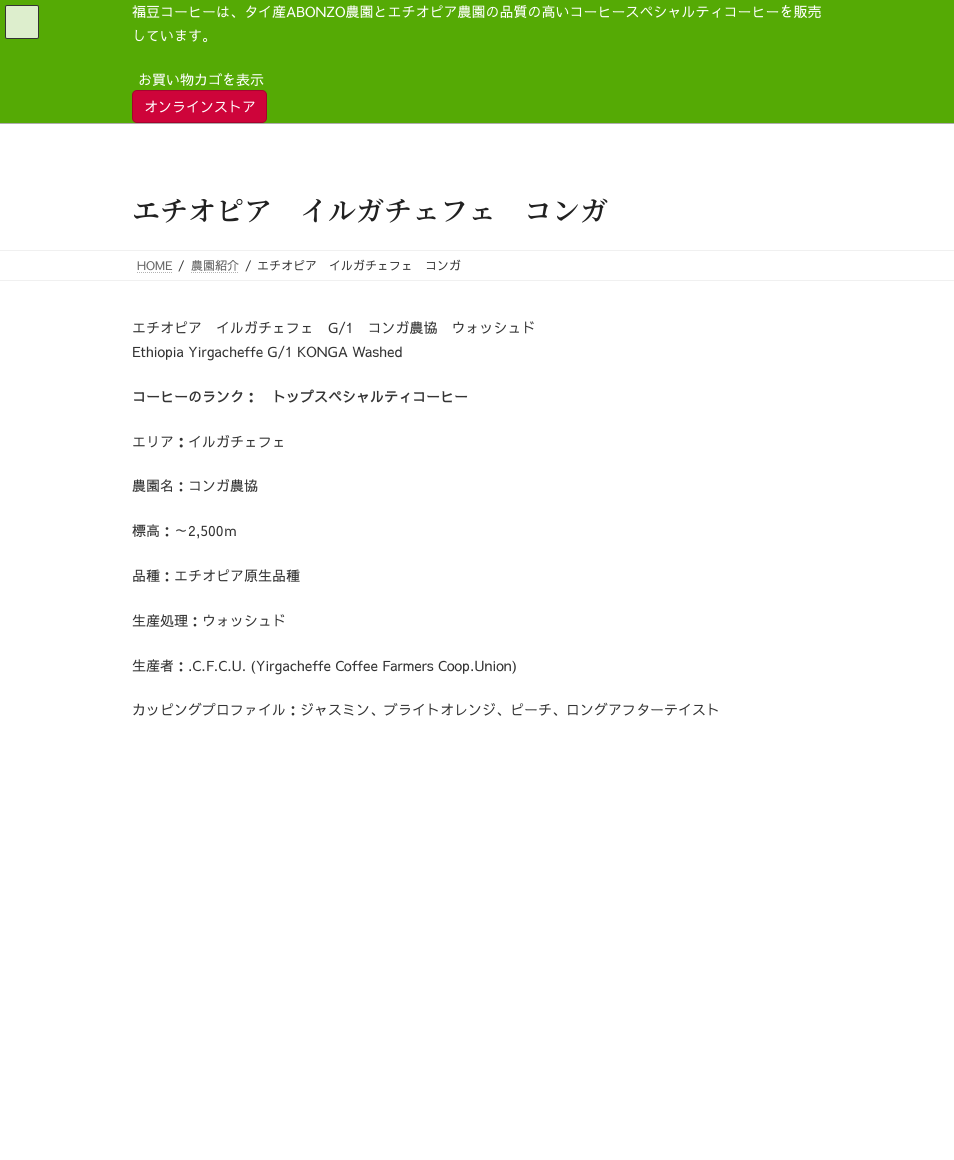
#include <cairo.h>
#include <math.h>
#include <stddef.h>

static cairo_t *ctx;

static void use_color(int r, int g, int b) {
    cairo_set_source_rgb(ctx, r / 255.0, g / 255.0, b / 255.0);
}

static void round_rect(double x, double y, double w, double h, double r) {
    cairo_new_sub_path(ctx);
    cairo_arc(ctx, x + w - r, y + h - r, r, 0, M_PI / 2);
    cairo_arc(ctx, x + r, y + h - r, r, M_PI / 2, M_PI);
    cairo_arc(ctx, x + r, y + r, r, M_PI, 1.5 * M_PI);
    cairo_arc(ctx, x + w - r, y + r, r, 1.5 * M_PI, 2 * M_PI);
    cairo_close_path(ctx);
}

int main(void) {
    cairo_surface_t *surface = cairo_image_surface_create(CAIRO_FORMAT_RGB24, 954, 1160);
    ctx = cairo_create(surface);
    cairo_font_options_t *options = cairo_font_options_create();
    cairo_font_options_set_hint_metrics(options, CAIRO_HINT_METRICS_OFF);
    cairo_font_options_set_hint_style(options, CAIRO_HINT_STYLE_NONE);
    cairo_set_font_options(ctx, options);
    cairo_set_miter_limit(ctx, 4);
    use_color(255, 255, 255);
    cairo_paint(ctx);
    use_color(85, 170, 5);
    cairo_rectangle(ctx, 0, 0, 954, 123);
    cairo_fill(ctx);
    use_color(221, 238, 205);
    round_rect(5.5, 5.5, 33, 33, 1.5);
    cairo_fill_preserve(ctx);
    use_color(51, 51, 51);
    cairo_set_line_width(ctx, 1);
    cairo_stroke(ctx);
    use_color(175, 175, 175);
    cairo_rectangle(ctx, 0, 123, 954, 1);
    cairo_fill(ctx);
    cairo_select_font_face(ctx, "Sawarabi Gothic", CAIRO_FONT_SLANT_NORMAL, CAIRO_FONT_WEIGHT_NORMAL);
    cairo_set_font_size(ctx, 14);
    use_color(255, 255, 255);
    cairo_move_to(ctx, 132, 17);
    cairo_show_text(ctx, "福豆コーヒーは、タイ産ABONZO農園とエチオピア農園の品質の高いコーヒースペシャルティコーヒーを販売");
    cairo_move_to(ctx, 132, 41);
    cairo_show_text(ctx, "しています。");
    cairo_move_to(ctx, 138, 85);
    cairo_show_text(ctx, "お買い物カゴを表示");
    use_color(206, 4, 58);
    round_rect(132.5, 90.5, 134, 32, 4.5);
    cairo_fill_preserve(ctx);
    use_color(165, 3, 46);
    cairo_stroke(ctx);
    use_color(255, 255, 255);
    cairo_move_to(ctx, 144, 112);
    cairo_show_text(ctx, "オンラインストア");
    cairo_select_font_face(ctx, "Noto Serif JP ExtraLight", CAIRO_FONT_SLANT_NORMAL, CAIRO_FONT_WEIGHT_NORMAL);
    cairo_set_font_size(ctx, 28);
    use_color(33, 33, 33);
    cairo_move_to(ctx, 132, 221);
    cairo_show_text(ctx, "エチオピア　イルガチェフェ　コンガ");
    use_color(240, 240, 240);
    cairo_rectangle(ctx, 0, 250, 954, 1);
    cairo_fill(ctx);
    cairo_rectangle(ctx, 0, 280, 954, 1);
    cairo_fill(ctx);
    cairo_select_font_face(ctx, "Sawarabi Gothic", CAIRO_FONT_SLANT_NORMAL, CAIRO_FONT_WEIGHT_NORMAL);
    cairo_set_font_size(ctx, 12);
    use_color(102, 102, 102);
    cairo_move_to(ctx, 137, 270);
    cairo_show_text(ctx, "HOME");
    cairo_new_path(ctx);
    cairo_move_to(ctx, 137, 272.5);
    cairo_line_to(ctx, 172.5, 272.5);
    use_color(179, 179, 179);
    cairo_set_dash(ctx, (double[]){1, 1}, 2, 0);
    cairo_stroke(ctx);
    use_color(51, 51, 51);
    cairo_move_to(ctx, 178, 270);
    cairo_show_text(ctx, "/");
    use_color(102, 102, 102);
    cairo_move_to(ctx, 191, 270);
    cairo_show_text(ctx, "農園紹介");
    cairo_new_path(ctx);
    cairo_move_to(ctx, 191, 272.5);
    cairo_line_to(ctx, 239, 272.5);
    use_color(179, 179, 179);
    cairo_stroke(ctx);
    use_color(51, 51, 51);
    cairo_move_to(ctx, 245, 270);
    cairo_show_text(ctx, "/");
    cairo_move_to(ctx, 257, 270);
    cairo_show_text(ctx, "エチオピア　イルガチェフェ　コンガ");
    cairo_set_font_size(ctx, 14);
    cairo_move_to(ctx, 132, 333);
    cairo_show_text(ctx, "エチオピア　イルガチェフェ　G/1　コンガ農協　ウォッシュド");
    cairo_move_to(ctx, 132, 357);
    cairo_show_text(ctx, "Ethiopia Yirgacheffe G/1 KONGA Washed");
    cairo_select_font_face(ctx, "Sawarabi Gothic", CAIRO_FONT_SLANT_NORMAL, CAIRO_FONT_WEIGHT_BOLD);
    cairo_move_to(ctx, 132, 402);
    cairo_show_text(ctx, "コーヒーのランク：　トップスペシャルティコーヒー");
    cairo_select_font_face(ctx, "Sawarabi Gothic", CAIRO_FONT_SLANT_NORMAL, CAIRO_FONT_WEIGHT_NORMAL);
    cairo_move_to(ctx, 132, 447);
    cairo_show_text(ctx, "エリア");
    cairo_select_font_face(ctx, "Sawarabi Gothic", CAIRO_FONT_SLANT_NORMAL, CAIRO_FONT_WEIGHT_BOLD);
    cairo_move_to(ctx, 174, 447);
    cairo_show_text(ctx, "：");
    cairo_select_font_face(ctx, "Sawarabi Gothic", CAIRO_FONT_SLANT_NORMAL, CAIRO_FONT_WEIGHT_NORMAL);
    cairo_move_to(ctx, 188, 447);
    cairo_show_text(ctx, "イルガチェフェ");
    cairo_move_to(ctx, 132, 491);
    cairo_show_text(ctx, "農園名：コンガ農協");
    cairo_move_to(ctx, 132, 536);
    cairo_show_text(ctx, "標高：～2,500ｍ");
    cairo_move_to(ctx, 132, 581);
    cairo_show_text(ctx, "品種：エチオピア原生品種");
    cairo_move_to(ctx, 132, 626);
    cairo_show_text(ctx, "生産処理：ウォッシュド");
    cairo_move_to(ctx, 132, 671);
    cairo_show_text(ctx, "生産者：.C.F.C.U. (Yirgacheffe Coffee Farmers Coop.Union)");
    cairo_move_to(ctx, 132, 715);
    cairo_show_text(ctx, "カッピングプロファイル：ジャスミン、ブライトオレンジ、ピーチ、ロングアフターテイスト");
    cairo_surface_write_to_png(surface, "result.png");
    cairo_font_options_destroy(options);
    cairo_destroy(ctx);
    cairo_surface_destroy(surface);
    return 0;
}
